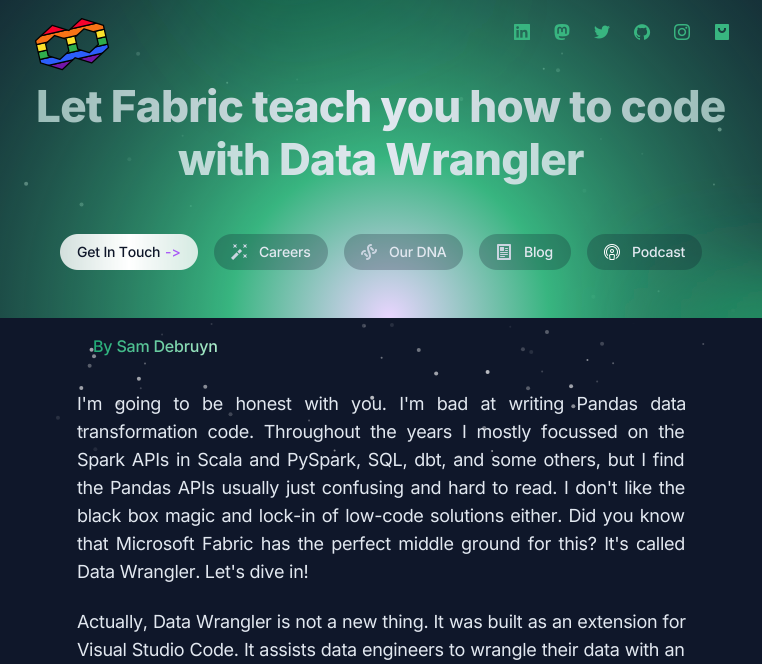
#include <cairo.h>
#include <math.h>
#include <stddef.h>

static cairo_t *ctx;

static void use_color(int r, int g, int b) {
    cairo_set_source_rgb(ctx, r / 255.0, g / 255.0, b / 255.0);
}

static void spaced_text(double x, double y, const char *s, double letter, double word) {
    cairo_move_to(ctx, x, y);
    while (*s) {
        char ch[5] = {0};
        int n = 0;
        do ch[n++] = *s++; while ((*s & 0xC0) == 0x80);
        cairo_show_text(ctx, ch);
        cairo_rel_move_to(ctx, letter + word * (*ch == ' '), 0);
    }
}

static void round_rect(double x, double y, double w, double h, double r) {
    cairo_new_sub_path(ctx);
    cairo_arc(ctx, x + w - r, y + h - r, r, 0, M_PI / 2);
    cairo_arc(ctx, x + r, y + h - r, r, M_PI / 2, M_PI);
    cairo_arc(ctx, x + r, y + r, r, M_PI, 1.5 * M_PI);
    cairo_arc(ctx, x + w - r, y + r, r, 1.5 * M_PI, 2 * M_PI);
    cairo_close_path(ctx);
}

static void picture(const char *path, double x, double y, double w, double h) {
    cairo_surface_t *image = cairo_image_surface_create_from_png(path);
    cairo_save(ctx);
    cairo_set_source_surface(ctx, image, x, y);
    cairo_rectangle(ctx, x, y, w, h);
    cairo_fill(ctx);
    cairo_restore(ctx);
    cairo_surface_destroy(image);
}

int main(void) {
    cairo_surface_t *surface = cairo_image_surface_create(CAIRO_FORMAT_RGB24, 762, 664);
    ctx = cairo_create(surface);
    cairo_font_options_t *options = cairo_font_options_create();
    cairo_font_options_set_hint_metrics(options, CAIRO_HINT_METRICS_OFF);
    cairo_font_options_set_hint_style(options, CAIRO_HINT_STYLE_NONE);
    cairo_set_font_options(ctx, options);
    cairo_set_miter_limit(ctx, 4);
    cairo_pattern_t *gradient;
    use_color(15, 23, 42);
    cairo_paint(ctx);
    picture("img9.png", 24, 51, 711, 261);
    picture("img8.png", 0, 0, 762, 318);
    picture("img1.png", 35, 18, 75, 53);
    picture("img2.png", 514, 24, 16, 16);
    picture("img3.png", 554, 24, 16, 16);
    picture("img4.png", 594, 25, 16, 14);
    picture("img5.png", 634, 24, 17, 16);
    picture("img6.png", 674, 24, 16, 16);
    picture("img7.png", 715, 24, 14, 16);
    cairo_select_font_face(ctx, "Inter ExtraBold", CAIRO_FONT_SLANT_NORMAL, CAIRO_FONT_WEIGHT_NORMAL);
    cairo_set_font_size(ctx, 44);
    gradient = cairo_pattern_create_linear(24, 125, 738, 125);
    cairo_pattern_add_color_stop_rgba(gradient, 0, 0.596, 0.733, 0.714, 1);
    cairo_pattern_add_color_stop_rgba(gradient, 0.5, 0.886, 0.91, 0.941, 1);
    cairo_pattern_add_color_stop_rgba(gradient, 1, 0.596, 0.733, 0.714, 1);
    cairo_set_source(ctx, gradient);
    cairo_pattern_destroy(gradient);
    spaced_text(36, 122, "Let Fabric teach you how to code", -0.75, 0);
    gradient = cairo_pattern_create_linear(24, 125, 738, 125);
    cairo_pattern_add_color_stop_rgba(gradient, 0, 0.612, 0.8, 0.749, 1);
    cairo_pattern_add_color_stop_rgba(gradient, 0.5, 0.886, 0.91, 0.941, 1);
    cairo_pattern_add_color_stop_rgba(gradient, 1, 0.612, 0.8, 0.749, 1);
    cairo_set_source(ctx, gradient);
    cairo_pattern_destroy(gradient);
    spaced_text(178, 175, "with Data Wrangler", -0.75, 0);
    cairo_save(ctx);
    round_rect(60, 234, 138, 36, 18);
    cairo_clip(ctx);
    gradient = cairo_pattern_create_linear(-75, 252, 61, 252);
    cairo_pattern_add_color_stop_rgba(gradient, 0, 0.827, 0.875, 0.863, 1);
    cairo_pattern_add_color_stop_rgba(gradient, 0.5, 1, 1, 1, 1);
    cairo_pattern_add_color_stop_rgba(gradient, 1, 0.827, 0.875, 0.863, 1);
    cairo_set_source(ctx, gradient);
    cairo_pattern_destroy(gradient);
    cairo_rectangle(ctx, 60, 246, 1, 12);
    cairo_fill(ctx);
    gradient = cairo_pattern_create_linear(61, 252, 197, 252);
    cairo_pattern_add_color_stop_rgba(gradient, 0, 1, 1, 1, 0.8);
    cairo_pattern_add_color_stop_rgba(gradient, 0.5, 1, 1, 1, 1);
    cairo_pattern_add_color_stop_rgba(gradient, 1, 1, 1, 1, 0.8);
    cairo_set_source(ctx, gradient);
    cairo_pattern_destroy(gradient);
    cairo_rectangle(ctx, 61, 234, 136, 36);
    cairo_fill(ctx);
    gradient = cairo_pattern_create_linear(197, 252, 333, 252);
    cairo_pattern_add_color_stop_rgba(gradient, 0, 0.839, 0.925, 0.89, 1);
    cairo_pattern_add_color_stop_rgba(gradient, 0.5, 1, 1, 1, 1);
    cairo_pattern_add_color_stop_rgba(gradient, 1, 0.839, 0.925, 0.89, 1);
    cairo_set_source(ctx, gradient);
    cairo_pattern_destroy(gradient);
    cairo_rectangle(ctx, 197, 246, 1, 12);
    cairo_fill(ctx);
    cairo_restore(ctx);
    cairo_select_font_face(ctx, "Inter Medium", CAIRO_FONT_SLANT_NORMAL, CAIRO_FONT_WEIGHT_NORMAL);
    cairo_set_font_size(ctx, 14);
    use_color(15, 23, 42);
    spaced_text(77, 257, "Get In Touch", -0.2, 0);
    use_color(168, 85, 247);
    cairo_move_to(ctx, 165, 257);
    cairo_show_text(ctx, "->");
    cairo_set_source_rgba(ctx, 0.059, 0.09, 0.165, 0.25);
    round_rect(214, 234, 114, 36, 18);
    cairo_fill(ctx);
    picture("img10.png", 231, 244, 16, 16);
    use_color(226, 232, 240);
    spaced_text(259, 257, "Careers", -0.2, 0);
    cairo_set_source_rgba(ctx, 0.059, 0.09, 0.165, 0.25);
    round_rect(344, 234, 119, 36, 18);
    cairo_fill(ctx);
    picture("img11.png", 361, 244, 16, 16);
    use_color(226, 232, 240);
    spaced_text(389, 257, "Our DNA", -0.2, 0);
    cairo_set_source_rgba(ctx, 0.059, 0.09, 0.165, 0.25);
    round_rect(479, 234, 92, 36, 18);
    cairo_fill(ctx);
    picture("img12.png", 497, 244, 14, 16);
    use_color(226, 232, 240);
    spaced_text(524, 257, "Blog", -0.2, 0);
    cairo_set_source_rgba(ctx, 0.059, 0.09, 0.165, 0.25);
    round_rect(587, 234, 115, 36, 18);
    cairo_fill(ctx);
    picture("img13.png", 604, 244, 16, 16);
    use_color(226, 232, 240);
    spaced_text(632, 257, "Podcast", -0.2, 0);
    picture("img14.png", 56, 323, 649, 139);
    cairo_set_font_size(ctx, 16);
    gradient = cairo_pattern_create_linear(93, 362, 218, 362);
    cairo_pattern_add_color_stop_rgba(gradient, 0, 0.122, 0.667, 0.455, 1);
    cairo_pattern_add_color_stop_rgba(gradient, 1, 0.682, 0.925, 0.796, 1);
    cairo_set_source(ctx, gradient);
    cairo_pattern_destroy(gradient);
    spaced_text(93, 352, "By Sam Debruyn", -0.2, 0);
    cairo_select_font_face(ctx, "Inter", CAIRO_FONT_SLANT_NORMAL, CAIRO_FONT_WEIGHT_NORMAL);
    cairo_set_font_size(ctx, 18);
    use_color(226, 232, 240);
    spaced_text(77, 410, "I'm going to be honest with you. I'm bad at writing Pandas data", -0.3, 7.75);
    spaced_text(77, 438, "transformation code. Throughout the years I mostly focussed on the", -0.3, 5.25);
    spaced_text(77, 466, "Spark APIs in Scala and PySpark, SQL, dbt, and some others, but I find", -0.3, 2.25);
    spaced_text(77, 494, "the Pandas APIs usually just confusing and hard to read. I don't like the", -0.3, 2);
    spaced_text(77, 522, "black box magic and lock-in of low-code solutions either. Did you know", -0.3, 1.75);
    spaced_text(77, 550, "that Microsoft Fabric has the perfect middle ground for this? It's called", -0.3, 2.75);
    spaced_text(77, 578, "Data Wrangler. Let's dive in!", -0.3, 0);
    spaced_text(77, 628, "Actually, Data Wrangler is not a new thing. It was built as an extension for", -0.3, 0.5);
    spaced_text(77, 656, "Visual Studio Code. It assists data engineers to wrangle their data with an", -0.3, 0.5);
    cairo_surface_write_to_png(surface, "result.png");
    cairo_font_options_destroy(options);
    cairo_destroy(ctx);
    cairo_surface_destroy(surface);
    return 0;
}
